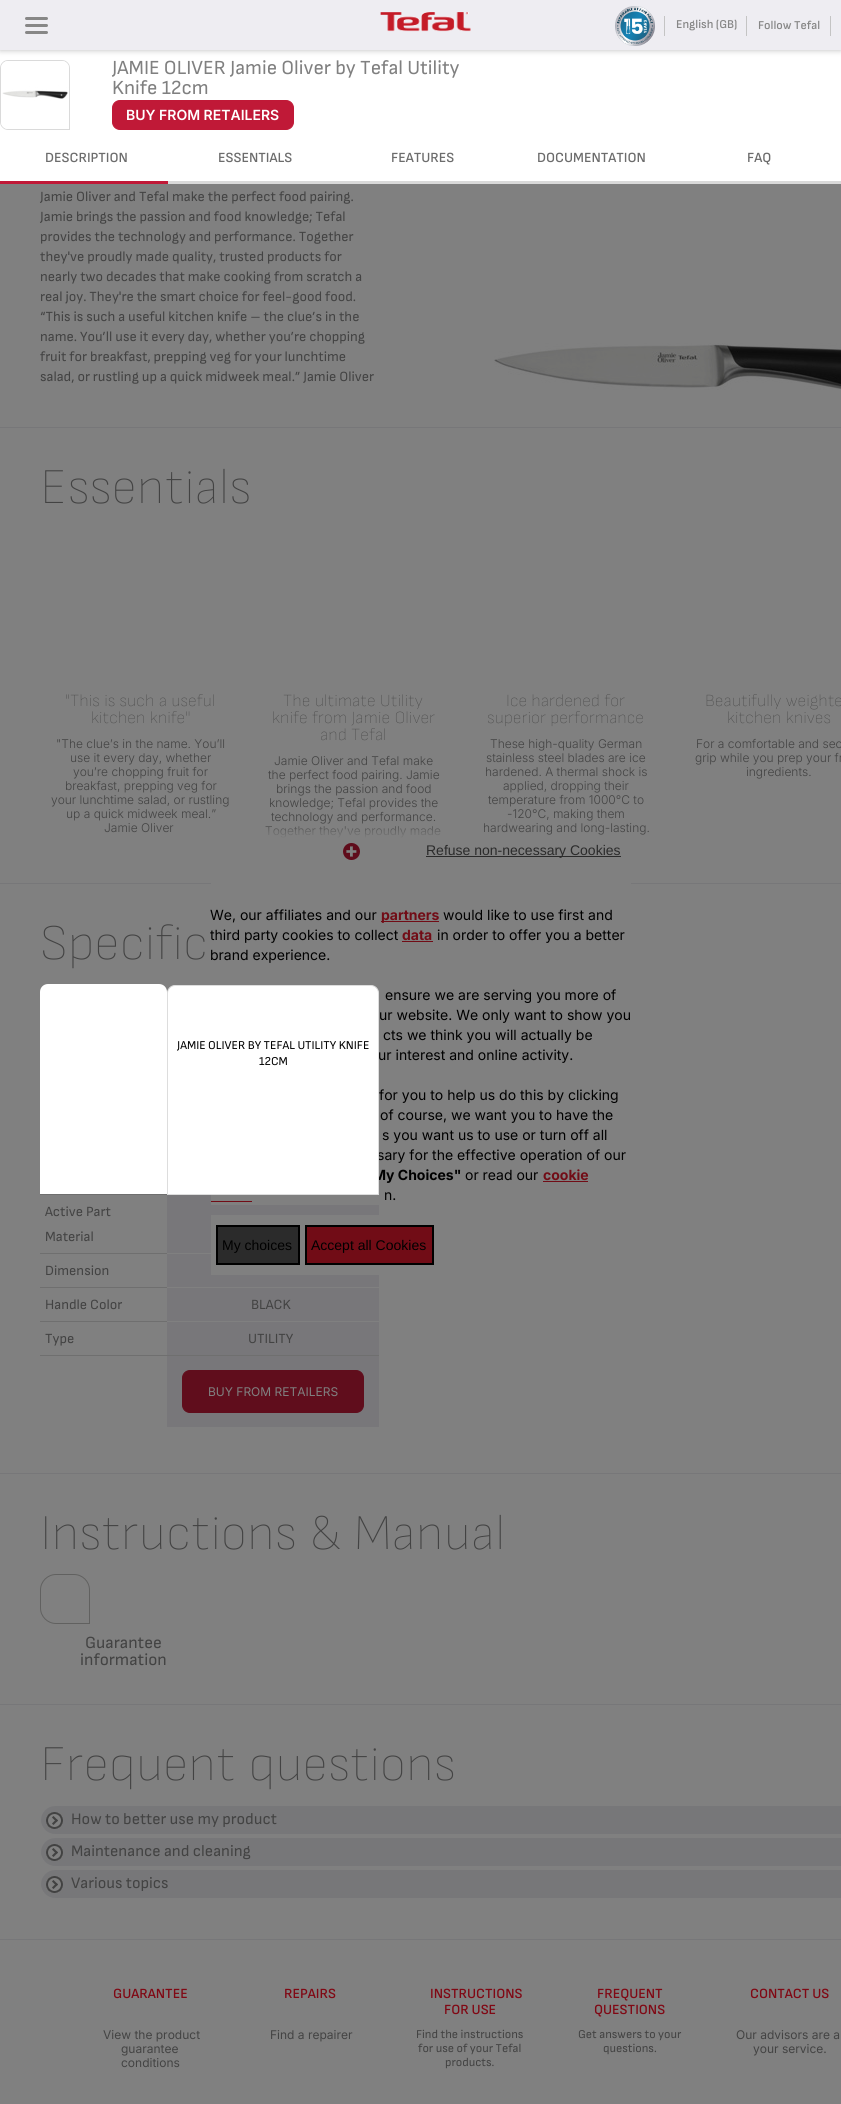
#include <cairo.h>
#include <math.h>
#include <stddef.h>

static cairo_t *ctx;

static void use_color(int r, int g, int b) {
    cairo_set_source_rgb(ctx, r / 255.0, g / 255.0, b / 255.0);
}

static void round_rect(double x, double y, double w, double h, double r) {
    cairo_new_sub_path(ctx);
    cairo_arc(ctx, x + w - r, y + h - r, r, 0, M_PI / 2);
    cairo_arc(ctx, x + r, y + h - r, r, M_PI / 2, M_PI);
    cairo_arc(ctx, x + r, y + r, r, M_PI, 1.5 * M_PI);
    cairo_arc(ctx, x + w - r, y + r, r, 1.5 * M_PI, 2 * M_PI);
    cairo_close_path(ctx);
}

static void shadow(double x, double y, double w, double h, double r, double blur, double alpha) {
    cairo_push_group_with_content(ctx, CAIRO_CONTENT_ALPHA);
    cairo_set_operator(ctx, CAIRO_OPERATOR_SOURCE);
    for (int i = 15; i >= -15 && fmin(w, h) + blur * i / 3 > 0; i -= 2) {
        double e = blur * i / 6;
        cairo_set_source_rgba(ctx, 0, 0, 0, alpha * erfc((i - 1) / 8.5) / 2);
        round_rect(x - e, y - e, w + 2 * e, h + 2 * e, fmax(0, fmin(r + e + blur * .6, fmin(w, h) / 2 + e)));
        cairo_fill(ctx);
    }
    cairo_pattern_t *soft = cairo_pop_group(ctx);
    cairo_mask(ctx, soft);
    cairo_pattern_destroy(soft);
}

static void picture(const char *path, double x, double y, double w, double h) {
    cairo_surface_t *image = cairo_image_surface_create_from_png(path);
    cairo_save(ctx);
    cairo_set_source_surface(ctx, image, x, y);
    cairo_rectangle(ctx, x, y, w, h);
    cairo_fill(ctx);
    cairo_restore(ctx);
    cairo_surface_destroy(image);
}

int main(void) {
    cairo_surface_t *surface = cairo_image_surface_create(CAIRO_FORMAT_RGB24, 841, 2104);
    ctx = cairo_create(surface);
    cairo_font_options_t *options = cairo_font_options_create();
    cairo_font_options_set_hint_metrics(options, CAIRO_HINT_METRICS_OFF);
    cairo_font_options_set_hint_style(options, CAIRO_HINT_STYLE_NONE);
    cairo_set_font_options(ctx, options);
    cairo_set_miter_limit(ctx, 4);
    cairo_pattern_t *gradient;
    use_color(128, 128, 128);
    cairo_paint(ctx);
    use_color(255, 255, 255);
    cairo_rectangle(ctx, 0, 50, 841, 131);
    cairo_fill(ctx);
    use_color(187, 187, 187);
    shadow(0, 0, 841, 50, 0, 3, 1);
    use_color(238, 237, 242);
    cairo_rectangle(ctx, 0, 0, 841, 50);
    cairo_fill(ctx);
    use_color(135, 135, 135);
    round_rect(25, 24, 23, 3, 1.5);
    cairo_fill(ctx);
    round_rect(25, 17, 23, 3, 1.5);
    cairo_fill(ctx);
    round_rect(25, 31, 23, 3, 1.5);
    cairo_fill(ctx);
    picture("img1.png", 380, 12, 91, 20);
    picture("img2.png", 615, 6, 40, 40);
    use_color(196, 196, 196);
    cairo_rectangle(ctx, 664, 16, 1, 20);
    cairo_fill(ctx);
    cairo_select_font_face(ctx, "Sofia Sans SemiBold", CAIRO_FONT_SLANT_NORMAL, CAIRO_FONT_WEIGHT_NORMAL);
    cairo_set_font_size(ctx, 12);
    use_color(134, 134, 134);
    cairo_move_to(ctx, 676, 28);
    cairo_show_text(ctx, "English (GB)");
    use_color(196, 196, 196);
    cairo_rectangle(ctx, 746, 16, 1, 20);
    cairo_fill(ctx);
    use_color(134, 134, 134);
    cairo_move_to(ctx, 758, 29);
    cairo_show_text(ctx, "Follow Tefal");
    use_color(196, 196, 196);
    cairo_rectangle(ctx, 830, 16, 1, 20);
    cairo_fill(ctx);
    cairo_new_path(ctx);
    cairo_move_to(ctx, 8, 60.5);
    cairo_line_to(ctx, 62, 60.5);
    cairo_curve_to(ctx, 66, 60.5, 69.5, 64, 69.5, 68);
    cairo_line_to(ctx, 69.5, 129.5);
    cairo_line_to(ctx, 8, 129.5);
    cairo_curve_to(ctx, 4, 129.5, 0.5, 126, 0.5, 122);
    cairo_line_to(ctx, 0.5, 68);
    cairo_curve_to(ctx, 0.5, 64, 4, 60.5, 8, 60.5);
    cairo_close_path(ctx);
    use_color(218, 218, 218);
    cairo_set_line_width(ctx, 1);
    cairo_stroke(ctx);
    picture("img3.png", 1, 61, 68, 68);
    cairo_select_font_face(ctx, "Sofia Sans", CAIRO_FONT_SLANT_NORMAL, CAIRO_FONT_WEIGHT_NORMAL);
    cairo_set_font_size(ctx, 20);
    use_color(128, 128, 128);
    cairo_move_to(ctx, 112, 74);
    cairo_show_text(ctx, "JAMIE OLIVER Jamie Oliver by Tefal Utility");
    cairo_move_to(ctx, 112, 94);
    cairo_show_text(ctx, "Knife 12cm");
    use_color(192, 25, 55);
    round_rect(112.5, 100.5, 181, 29, 7.5);
    cairo_fill_preserve(ctx);
    cairo_stroke(ctx);
    cairo_select_font_face(ctx, "Inter SemiBold", CAIRO_FONT_SLANT_NORMAL, CAIRO_FONT_WEIGHT_NORMAL);
    cairo_set_font_size(ctx, 14);
    use_color(255, 255, 255);
    cairo_move_to(ctx, 126, 120);
    cairo_show_text(ctx, "BUY FROM RETAILERS");
    use_color(192, 25, 55);
    cairo_rectangle(ctx, 0, 181, 173, 3);
    cairo_fill(ctx);
    cairo_select_font_face(ctx, "Sofia Sans SemiBold", CAIRO_FONT_SLANT_NORMAL, CAIRO_FONT_WEIGHT_NORMAL);
    use_color(108, 108, 108);
    cairo_move_to(ctx, 45, 162);
    cairo_show_text(ctx, "DESCRIPTION");
    use_color(217, 217, 217);
    cairo_rectangle(ctx, 168, 181, 673, 3);
    cairo_fill(ctx);
    use_color(108, 108, 108);
    cairo_move_to(ctx, 218, 162);
    cairo_show_text(ctx, "ESSENTIALS");
    cairo_move_to(ctx, 391, 162);
    cairo_show_text(ctx, "FEATURES");
    cairo_move_to(ctx, 537, 162);
    cairo_show_text(ctx, "DOCUMENTATION");
    cairo_move_to(ctx, 747, 162);
    cairo_show_text(ctx, "FAQ");
    use_color(119, 119, 121);
    cairo_rectangle(ctx, 0, 427, 841, 1);
    cairo_fill(ctx);
    picture("img4.png", 494, 343, 347, 47);
    cairo_select_font_face(ctx, "Sofia Sans", CAIRO_FONT_SLANT_NORMAL, CAIRO_FONT_WEIGHT_NORMAL);
    use_color(67, 67, 67);
    cairo_move_to(ctx, 40, 201);
    cairo_show_text(ctx, "Jamie Oliver and Tefal make the perfect food pairing.");
    cairo_move_to(ctx, 40, 221);
    cairo_show_text(ctx, "Jamie brings the passion and food knowledge; Tefal");
    cairo_move_to(ctx, 40, 241);
    cairo_show_text(ctx, "provides the technology and performance. Together");
    cairo_move_to(ctx, 40, 261);
    cairo_show_text(ctx, "they've proudly made quality, trusted products for");
    cairo_move_to(ctx, 40, 281);
    cairo_show_text(ctx, "nearly two decades that make cooking from scratch a");
    cairo_move_to(ctx, 40, 301);
    cairo_show_text(ctx, "real joy. They're the smart choice for feel-good food.");
    cairo_move_to(ctx, 40, 321);
    cairo_show_text(ctx, "“This is such a useful kitchen knife – the clue’s in the");
    cairo_move_to(ctx, 40, 341);
    cairo_show_text(ctx, "name. You’ll use it every day, whether you’re chopping");
    cairo_move_to(ctx, 40, 361);
    cairo_show_text(ctx, "fruit for breakfast, prepping veg for your lunchtime");
    cairo_move_to(ctx, 40, 381);
    cairo_show_text(ctx, "salad, or rustling up a quick midweek meal.” Jamie Oliver");
    use_color(119, 119, 121);
    cairo_rectangle(ctx, 0, 883, 841, 1);
    cairo_fill(ctx);
    cairo_select_font_face(ctx, "Sofia Sans Thin", CAIRO_FONT_SLANT_NORMAL, CAIRO_FONT_WEIGHT_NORMAL);
    cairo_set_font_size(ctx, 50);
    use_color(67, 67, 67);
    cairo_move_to(ctx, 40, 503);
    cairo_show_text(ctx, "Essentials");
    cairo_set_font_size(ctx, 17);
    cairo_move_to(ctx, 65, 706);
    cairo_show_text(ctx, "\"This is such a useful");
    cairo_move_to(ctx, 91, 723);
    cairo_show_text(ctx, "kitchen knife\"");
    cairo_select_font_face(ctx, "Inter Light", CAIRO_FONT_SLANT_NORMAL, CAIRO_FONT_WEIGHT_NORMAL);
    cairo_set_font_size(ctx, 12);
    cairo_move_to(ctx, 56, 748);
    cairo_show_text(ctx, "\"The clue’s in the name. You’ll");
    cairo_move_to(ctx, 70, 762);
    cairo_show_text(ctx, "use it every day, whether");
    cairo_move_to(ctx, 73, 776);
    cairo_show_text(ctx, "you’re chopping fruit for");
    cairo_move_to(ctx, 65, 790);
    cairo_show_text(ctx, "breakfast, prepping veg for");
    cairo_move_to(ctx, 51, 804);
    cairo_show_text(ctx, "your lunchtime salad, or rustling");
    cairo_move_to(ctx, 66, 818);
    cairo_show_text(ctx, "up a quick midweek meal.”");
    cairo_move_to(ctx, 104, 832);
    cairo_show_text(ctx, "Jamie Oliver");
    cairo_select_font_face(ctx, "Sofia Sans Thin", CAIRO_FONT_SLANT_NORMAL, CAIRO_FONT_WEIGHT_NORMAL);
    cairo_set_font_size(ctx, 17);
    cairo_move_to(ctx, 283, 706);
    cairo_show_text(ctx, "The ultimate Utility");
    cairo_move_to(ctx, 272, 723);
    cairo_show_text(ctx, "knife from Jamie Oliver");
    cairo_move_to(ctx, 320, 740);
    cairo_show_text(ctx, "and Tefal");
    cairo_select_font_face(ctx, "Inter Light", CAIRO_FONT_SLANT_NORMAL, CAIRO_FONT_WEIGHT_NORMAL);
    cairo_set_font_size(ctx, 12);
    cairo_move_to(ctx, 274, 765);
    cairo_show_text(ctx, "Jamie Oliver and Tefal make");
    cairo_move_to(ctx, 268, 779);
    cairo_show_text(ctx, "the perfect food pairing. Jamie");
    cairo_move_to(ctx, 276, 793);
    cairo_show_text(ctx, "brings the passion and food");
    cairo_move_to(ctx, 269, 807);
    cairo_show_text(ctx, "knowledge; Tefal provides the");
    cairo_move_to(ctx, 271, 821);
    cairo_show_text(ctx, "technology and performance.");
    cairo_move_to(ctx, 265, 835);
    cairo_show_text(ctx, "Together they've proudly made");
    picture("img5.png", 343, 843, 17, 17);
    gradient = cairo_pattern_create_linear(354, 823, 354, 843);
    cairo_pattern_add_color_stop_rgba(gradient, 0, 0.502, 0.502, 0.502, 0);
    cairo_pattern_add_color_stop_rgba(gradient, 0.8, 0.502, 0.502, 0.502, 1);
    cairo_pattern_add_color_stop_rgba(gradient, 1, 0.502, 0.502, 0.502, 1);
    cairo_set_source(ctx, gradient);
    cairo_pattern_destroy(gradient);
    cairo_rectangle(ctx, 266, 826, 175, 12);
    cairo_fill(ctx);
    cairo_select_font_face(ctx, "Sofia Sans Thin", CAIRO_FONT_SLANT_NORMAL, CAIRO_FONT_WEIGHT_NORMAL);
    cairo_set_font_size(ctx, 17);
    use_color(67, 67, 67);
    cairo_move_to(ctx, 506, 706);
    cairo_show_text(ctx, "Ice hardened for");
    cairo_move_to(ctx, 487, 723);
    cairo_show_text(ctx, "superior performance");
    cairo_select_font_face(ctx, "Inter Light", CAIRO_FONT_SLANT_NORMAL, CAIRO_FONT_WEIGHT_NORMAL);
    cairo_set_font_size(ctx, 12);
    cairo_move_to(ctx, 490, 748);
    cairo_show_text(ctx, "These high-quality German");
    cairo_move_to(ctx, 486, 762);
    cairo_show_text(ctx, "stainless steel blades are ice");
    cairo_move_to(ctx, 485, 776);
    cairo_show_text(ctx, "hardened. A thermal shock is");
    cairo_move_to(ctx, 503, 790);
    cairo_show_text(ctx, "applied, dropping their");
    cairo_move_to(ctx, 488, 804);
    cairo_show_text(ctx, "temperature from 1000°C to");
    cairo_move_to(ctx, 507, 818);
    cairo_show_text(ctx, "-120°C, making them");
    cairo_move_to(ctx, 483, 832);
    cairo_show_text(ctx, "hardwearing and long-lasting.");
    cairo_select_font_face(ctx, "Sofia Sans Thin", CAIRO_FONT_SLANT_NORMAL, CAIRO_FONT_WEIGHT_NORMAL);
    cairo_set_font_size(ctx, 17);
    cairo_move_to(ctx, 705, 706);
    cairo_show_text(ctx, "Beautifully weighte");
    cairo_move_to(ctx, 727, 723);
    cairo_show_text(ctx, "kitchen knives");
    cairo_select_font_face(ctx, "Inter Light", CAIRO_FONT_SLANT_NORMAL, CAIRO_FONT_WEIGHT_NORMAL);
    cairo_set_font_size(ctx, 12);
    cairo_move_to(ctx, 696, 748);
    cairo_show_text(ctx, "For a comfortable and sec");
    cairo_move_to(ctx, 695, 762);
    cairo_show_text(ctx, "grip while you prep your fr");
    cairo_move_to(ctx, 746, 776);
    cairo_show_text(ctx, "ingredients.");
    use_color(119, 119, 121);
    cairo_rectangle(ctx, 0, 1473, 841, 1);
    cairo_fill(ctx);
    cairo_select_font_face(ctx, "Sofia Sans Thin", CAIRO_FONT_SLANT_NORMAL, CAIRO_FONT_WEIGHT_NORMAL);
    cairo_set_font_size(ctx, 50);
    use_color(67, 67, 67);
    cairo_move_to(ctx, 40, 959);
    cairo_show_text(ctx, "Specific");
    use_color(255, 255, 255);
    cairo_new_path(ctx);
    cairo_move_to(ctx, 48, 984);
    cairo_line_to(ctx, 159, 984);
    cairo_curve_to(ctx, 163.5, 984, 167, 987.5, 167, 992);
    cairo_line_to(ctx, 167, 1194);
    cairo_line_to(ctx, 40, 1194);
    cairo_line_to(ctx, 40, 992);
    cairo_curve_to(ctx, 40, 987.5, 43.5, 984, 48, 984);
    cairo_close_path(ctx);
    cairo_fill(ctx);
    use_color(120, 119, 122);
    cairo_rectangle(ctx, 167, 1195, 212, 58);
    cairo_fill(ctx);
    use_color(128, 128, 128);
    cairo_rectangle(ctx, 211, 883, 420, 322);
    cairo_fill(ctx);
    cairo_select_font_face(ctx, "Inter", CAIRO_FONT_SLANT_NORMAL, CAIRO_FONT_WEIGHT_NORMAL);
    cairo_set_font_size(ctx, 14);
    use_color(0, 0, 0);
    cairo_move_to(ctx, 378, 1060);
    cairo_show_text(ctx, "ur interest and online activity.");
    cairo_move_to(ctx, 377, 1160);
    cairo_show_text(ctx, "sary for the effective operation of our");
    cairo_select_font_face(ctx, "Inter", CAIRO_FONT_SLANT_NORMAL, CAIRO_FONT_WEIGHT_BOLD);
    cairo_move_to(ctx, 373, 1180);
    cairo_show_text(ctx, "My Choices\"");
    use_color(255, 255, 255);
    cairo_new_path(ctx);
    cairo_move_to(ctx, 175, 985.5);
    cairo_line_to(ctx, 371, 985.5);
    cairo_curve_to(ctx, 375, 985.5, 378.5, 989, 378.5, 993);
    cairo_line_to(ctx, 378.5, 1194.5);
    cairo_line_to(ctx, 167.5, 1194.5);
    cairo_line_to(ctx, 167.5, 993);
    cairo_curve_to(ctx, 167.5, 989, 171, 985.5, 175, 985.5);
    cairo_close_path(ctx);
    cairo_fill_preserve(ctx);
    use_color(221, 221, 221);
    cairo_stroke(ctx);
    cairo_select_font_face(ctx, "Sofia Sans", CAIRO_FONT_SLANT_NORMAL, CAIRO_FONT_WEIGHT_NORMAL);
    cairo_set_font_size(ctx, 12);
    use_color(0, 0, 0);
    cairo_move_to(ctx, 177, 1049);
    cairo_show_text(ctx, "JAMIE OLIVER BY TEFAL UTILITY KNIFE");
    cairo_move_to(ctx, 259, 1065);
    cairo_show_text(ctx, "12CM");
    use_color(111, 111, 111);
    cairo_rectangle(ctx, 40, 1194, 127, 1);
    cairo_fill(ctx);
    cairo_set_font_size(ctx, 14);
    use_color(67, 67, 67);
    cairo_move_to(ctx, 45, 1216);
    cairo_show_text(ctx, "Active Part");
    cairo_move_to(ctx, 45, 1241);
    cairo_show_text(ctx, "Material");
    use_color(111, 111, 111);
    cairo_rectangle(ctx, 40, 1253, 127, 1);
    cairo_fill(ctx);
    use_color(67, 67, 67);
    cairo_move_to(ctx, 45, 1275);
    cairo_show_text(ctx, "Dimension");
    use_color(120, 119, 122);
    cairo_rectangle(ctx, 167, 1254, 212, 33);
    cairo_fill(ctx);
    use_color(111, 111, 111);
    cairo_rectangle(ctx, 40, 1287, 127, 1);
    cairo_fill(ctx);
    use_color(67, 67, 67);
    cairo_move_to(ctx, 45, 1309);
    cairo_show_text(ctx, "Handle Color");
    use_color(120, 119, 122);
    cairo_rectangle(ctx, 167, 1288, 212, 33);
    cairo_fill(ctx);
    use_color(67, 67, 67);
    cairo_move_to(ctx, 251, 1309);
    cairo_show_text(ctx, "BLACK");
    use_color(111, 111, 111);
    cairo_rectangle(ctx, 40, 1321, 127, 1);
    cairo_fill(ctx);
    use_color(67, 67, 67);
    cairo_move_to(ctx, 45, 1343);
    cairo_show_text(ctx, "Type");
    use_color(120, 119, 122);
    cairo_rectangle(ctx, 167, 1322, 212, 33);
    cairo_fill(ctx);
    use_color(67, 67, 67);
    cairo_move_to(ctx, 248, 1343);
    cairo_show_text(ctx, "UTILITY");
    use_color(111, 111, 111);
    cairo_rectangle(ctx, 40, 1355, 339, 1);
    cairo_fill(ctx);
    use_color(120, 119, 122);
    cairo_rectangle(ctx, 167, 1356, 212, 71);
    cairo_fill(ctx);
    use_color(96, 13, 28);
    round_rect(182.5, 1370.5, 181, 42, 7.5);
    cairo_fill_preserve(ctx);
    cairo_stroke(ctx);
    cairo_select_font_face(ctx, "Inter", CAIRO_FONT_SLANT_NORMAL, CAIRO_FONT_WEIGHT_NORMAL);
    cairo_set_font_size(ctx, 12);
    use_color(128, 128, 128);
    cairo_move_to(ctx, 208, 1396);
    cairo_show_text(ctx, "BUY FROM RETAILERS");
    use_color(119, 119, 121);
    cairo_rectangle(ctx, 0, 1704, 841, 1);
    cairo_fill(ctx);
    cairo_select_font_face(ctx, "Sofia Sans Thin", CAIRO_FONT_SLANT_NORMAL, CAIRO_FONT_WEIGHT_NORMAL);
    cairo_set_font_size(ctx, 50);
    use_color(67, 67, 67);
    cairo_move_to(ctx, 40, 1549);
    cairo_show_text(ctx, "Instructions & Manual");
    cairo_new_path(ctx);
    cairo_move_to(ctx, 56, 1574.5);
    cairo_line_to(ctx, 74, 1574.5);
    cairo_curve_to(ctx, 82.5, 1574.5, 89.5, 1581.5, 89.5, 1590);
    cairo_line_to(ctx, 89.5, 1623.5);
    cairo_line_to(ctx, 56, 1623.5);
    cairo_curve_to(ctx, 47.5, 1623.5, 40.5, 1616.5, 40.5, 1608);
    cairo_line_to(ctx, 40.5, 1590);
    cairo_curve_to(ctx, 40.5, 1581.5, 47.5, 1574.5, 56, 1574.5);
    cairo_close_path(ctx);
    use_color(97, 97, 96);
    cairo_stroke(ctx);
    cairo_select_font_face(ctx, "Sofia Sans", CAIRO_FONT_SLANT_NORMAL, CAIRO_FONT_WEIGHT_NORMAL);
    cairo_set_font_size(ctx, 17);
    use_color(67, 67, 67);
    cairo_move_to(ctx, 85, 1648);
    cairo_show_text(ctx, "Guarantee");
    cairo_move_to(ctx, 80, 1665);
    cairo_show_text(ctx, "information");
    use_color(119, 119, 121);
    cairo_rectangle(ctx, 0, 1939, 841, 1);
    cairo_fill(ctx);
    cairo_select_font_face(ctx, "Sofia Sans Thin", CAIRO_FONT_SLANT_NORMAL, CAIRO_FONT_WEIGHT_NORMAL);
    cairo_set_font_size(ctx, 50);
    use_color(67, 67, 67);
    cairo_move_to(ctx, 40, 1780);
    cairo_show_text(ctx, "Frequent questions");
    use_color(119, 119, 121);
    cairo_new_path(ctx);
    cairo_move_to(ctx, 55, 1806);
    cairo_line_to(ctx, 841, 1806);
    cairo_curve_to(ctx, 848.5, 1806, 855, 1812.5, 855, 1820);
    cairo_line_to(ctx, 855, 1834);
    cairo_line_to(ctx, 55, 1834);
    cairo_curve_to(ctx, 47.5, 1834, 41, 1827.5, 41, 1820);
    cairo_curve_to(ctx, 41, 1812.5, 47.5, 1806, 55, 1806);
    cairo_close_path(ctx);
    cairo_fill(ctx);
    picture("img6.png", 46, 1812, 17, 17);
    cairo_select_font_face(ctx, "Sofia Sans", CAIRO_FONT_SLANT_NORMAL, CAIRO_FONT_WEIGHT_NORMAL);
    cairo_set_font_size(ctx, 16);
    use_color(67, 67, 67);
    cairo_move_to(ctx, 71, 1824);
    cairo_show_text(ctx, "How to better use my product");
    use_color(119, 119, 121);
    cairo_new_path(ctx);
    cairo_move_to(ctx, 55, 1838);
    cairo_line_to(ctx, 841, 1838);
    cairo_curve_to(ctx, 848.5, 1838, 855, 1844.5, 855, 1852);
    cairo_line_to(ctx, 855, 1866);
    cairo_line_to(ctx, 55, 1866);
    cairo_curve_to(ctx, 47.5, 1866, 41, 1859.5, 41, 1852);
    cairo_curve_to(ctx, 41, 1844.5, 47.5, 1838, 55, 1838);
    cairo_close_path(ctx);
    cairo_fill(ctx);
    picture("img6.png", 46, 1844, 17, 17);
    use_color(67, 67, 67);
    cairo_move_to(ctx, 71, 1856);
    cairo_show_text(ctx, "Maintenance and cleaning");
    use_color(119, 119, 121);
    cairo_new_path(ctx);
    cairo_move_to(ctx, 55, 1870);
    cairo_line_to(ctx, 841, 1870);
    cairo_curve_to(ctx, 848.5, 1870, 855, 1876.5, 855, 1884);
    cairo_line_to(ctx, 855, 1898);
    cairo_line_to(ctx, 55, 1898);
    cairo_curve_to(ctx, 47.5, 1898, 41, 1891.5, 41, 1884);
    cairo_curve_to(ctx, 41, 1876.5, 47.5, 1870, 55, 1870);
    cairo_close_path(ctx);
    cairo_fill(ctx);
    picture("img6.png", 46, 1876, 17, 17);
    use_color(67, 67, 67);
    cairo_move_to(ctx, 71, 1888);
    cairo_show_text(ctx, "Various topics");
    use_color(128, 128, 128);
    cairo_rectangle(ctx, 211, 1215, 168, 60);
    cairo_fill(ctx);
    use_color(43, 43, 43);
    cairo_rectangle(ctx, 426, 856, 195, 1);
    cairo_fill(ctx);
    cairo_select_font_face(ctx, "Liberation Sans", CAIRO_FONT_SLANT_NORMAL, CAIRO_FONT_WEIGHT_NORMAL);
    cairo_set_font_size(ctx, 14);
    cairo_move_to(ctx, 426, 855);
    cairo_show_text(ctx, "Refuse non-necessary Cookies");
    cairo_rectangle(ctx, 217, 1226, 82, 38);
    cairo_fill_preserve(ctx);
    use_color(0, 0, 0);
    cairo_set_line_width(ctx, 2);
    cairo_stroke(ctx);
    cairo_move_to(ctx, 222, 1250);
    cairo_show_text(ctx, "My choices");
    use_color(113, 12, 22);
    cairo_rectangle(ctx, 306, 1226, 127, 38);
    cairo_fill_preserve(ctx);
    use_color(0, 0, 0);
    cairo_stroke(ctx);
    cairo_move_to(ctx, 311, 1250);
    cairo_show_text(ctx, "Accept all Cookies");
    cairo_select_font_face(ctx, "Inter", CAIRO_FONT_SLANT_NORMAL, CAIRO_FONT_WEIGHT_NORMAL);
    cairo_move_to(ctx, 210, 920);
    cairo_show_text(ctx, "We, our affiliates and our");
    use_color(113, 12, 22);
    cairo_rectangle(ctx, 381, 921, 58, 1);
    cairo_fill(ctx);
    cairo_select_font_face(ctx, "Inter", CAIRO_FONT_SLANT_NORMAL, CAIRO_FONT_WEIGHT_BOLD);
    cairo_move_to(ctx, 381, 920);
    cairo_show_text(ctx, "partners");
    cairo_select_font_face(ctx, "Inter", CAIRO_FONT_SLANT_NORMAL, CAIRO_FONT_WEIGHT_NORMAL);
    use_color(0, 0, 0);
    cairo_move_to(ctx, 443, 920);
    cairo_show_text(ctx, "would like to use first and");
    cairo_move_to(ctx, 210, 940);
    cairo_show_text(ctx, "third party cookies to collect");
    cairo_select_font_face(ctx, "Inter", CAIRO_FONT_SLANT_NORMAL, CAIRO_FONT_WEIGHT_BOLD);
    use_color(113, 12, 22);
    cairo_move_to(ctx, 402, 940);
    cairo_show_text(ctx, "data");
    cairo_rectangle(ctx, 402, 941, 31, 1);
    cairo_fill(ctx);
    cairo_select_font_face(ctx, "Inter", CAIRO_FONT_SLANT_NORMAL, CAIRO_FONT_WEIGHT_NORMAL);
    use_color(0, 0, 0);
    cairo_move_to(ctx, 437, 940);
    cairo_show_text(ctx, "in order to offer you a better");
    cairo_move_to(ctx, 210, 960);
    cairo_show_text(ctx, "brand experience.");
    cairo_move_to(ctx, 385, 1000);
    cairo_show_text(ctx, "ensure we are serving you more of");
    cairo_move_to(ctx, 379, 1020);
    cairo_show_text(ctx, "ur website. We only want to show you");
    cairo_move_to(ctx, 383, 1040);
    cairo_show_text(ctx, "cts we think you will actually be");
    cairo_move_to(ctx, 379, 1100);
    cairo_show_text(ctx, "for you to help us do this by clicking");
    cairo_move_to(ctx, 380, 1120);
    cairo_show_text(ctx, "of course, we want you to have the");
    cairo_move_to(ctx, 382, 1140);
    cairo_show_text(ctx, "s you want us to use or turn off all");
    cairo_move_to(ctx, 465, 1180);
    cairo_show_text(ctx, "or read our");
    cairo_select_font_face(ctx, "Inter", CAIRO_FONT_SLANT_NORMAL, CAIRO_FONT_WEIGHT_BOLD);
    use_color(113, 12, 22);
    cairo_move_to(ctx, 543, 1180);
    cairo_show_text(ctx, "cookie");
    cairo_rectangle(ctx, 543, 1181, 45, 1);
    cairo_fill(ctx);
    cairo_rectangle(ctx, 211, 1201, 41, 1);
    cairo_fill(ctx);
    cairo_select_font_face(ctx, "Inter", CAIRO_FONT_SLANT_NORMAL, CAIRO_FONT_WEIGHT_NORMAL);
    use_color(0, 0, 0);
    cairo_move_to(ctx, 384, 1200);
    cairo_show_text(ctx, "n.");
    cairo_select_font_face(ctx, "Sofia Sans SemiBold", CAIRO_FONT_SLANT_NORMAL, CAIRO_FONT_WEIGHT_NORMAL);
    use_color(128, 8, 20);
    cairo_move_to(ctx, 113, 1998);
    cairo_show_text(ctx, "GUARANTEE");
    cairo_select_font_face(ctx, "Inter", CAIRO_FONT_SLANT_NORMAL, CAIRO_FONT_WEIGHT_NORMAL);
    cairo_set_font_size(ctx, 12);
    use_color(67, 67, 67);
    cairo_move_to(ctx, 103, 2039);
    cairo_show_text(ctx, "View the product");
    cairo_move_to(ctx, 121, 2053);
    cairo_show_text(ctx, "guarantee");
    cairo_move_to(ctx, 121, 2067);
    cairo_show_text(ctx, "conditions");
    cairo_select_font_face(ctx, "Sofia Sans SemiBold", CAIRO_FONT_SLANT_NORMAL, CAIRO_FONT_WEIGHT_NORMAL);
    cairo_set_font_size(ctx, 14);
    use_color(128, 8, 20);
    cairo_move_to(ctx, 284, 1998);
    cairo_show_text(ctx, "REPAIRS");
    cairo_select_font_face(ctx, "Inter", CAIRO_FONT_SLANT_NORMAL, CAIRO_FONT_WEIGHT_NORMAL);
    cairo_set_font_size(ctx, 12);
    use_color(67, 67, 67);
    cairo_move_to(ctx, 270, 2039);
    cairo_show_text(ctx, "Find a repairer");
    cairo_select_font_face(ctx, "Sofia Sans SemiBold", CAIRO_FONT_SLANT_NORMAL, CAIRO_FONT_WEIGHT_NORMAL);
    cairo_set_font_size(ctx, 14);
    use_color(128, 8, 20);
    cairo_move_to(ctx, 430, 1998);
    cairo_show_text(ctx, "INSTRUCTIONS");
    cairo_move_to(ctx, 444, 2014);
    cairo_show_text(ctx, "FOR USE");
    cairo_select_font_face(ctx, "Sofia Sans", CAIRO_FONT_SLANT_NORMAL, CAIRO_FONT_WEIGHT_NORMAL);
    cairo_set_font_size(ctx, 12);
    use_color(67, 67, 67);
    cairo_move_to(ctx, 416, 2038);
    cairo_show_text(ctx, "Find the instructions");
    cairo_move_to(ctx, 418, 2052);
    cairo_show_text(ctx, "for use of your Tefal");
    cairo_move_to(ctx, 445, 2066);
    cairo_show_text(ctx, "products.");
    cairo_select_font_face(ctx, "Sofia Sans SemiBold", CAIRO_FONT_SLANT_NORMAL, CAIRO_FONT_WEIGHT_NORMAL);
    cairo_set_font_size(ctx, 14);
    use_color(128, 8, 20);
    cairo_move_to(ctx, 597, 1998);
    cairo_show_text(ctx, "FREQUENT");
    cairo_move_to(ctx, 594, 2014);
    cairo_show_text(ctx, "QUESTIONS");
    cairo_select_font_face(ctx, "Sofia Sans", CAIRO_FONT_SLANT_NORMAL, CAIRO_FONT_WEIGHT_NORMAL);
    cairo_set_font_size(ctx, 12);
    use_color(67, 67, 67);
    cairo_move_to(ctx, 578, 2038);
    cairo_show_text(ctx, "Get answers to your");
    cairo_move_to(ctx, 603, 2052);
    cairo_show_text(ctx, "questions.");
    cairo_select_font_face(ctx, "Sofia Sans SemiBold", CAIRO_FONT_SLANT_NORMAL, CAIRO_FONT_WEIGHT_NORMAL);
    cairo_set_font_size(ctx, 14);
    use_color(128, 8, 20);
    cairo_move_to(ctx, 750, 1998);
    cairo_show_text(ctx, "CONTACT US");
    cairo_select_font_face(ctx, "Inter", CAIRO_FONT_SLANT_NORMAL, CAIRO_FONT_WEIGHT_NORMAL);
    cairo_set_font_size(ctx, 12);
    use_color(67, 67, 67);
    cairo_move_to(ctx, 736, 2039);
    cairo_show_text(ctx, "Our advisors are a");
    cairo_move_to(ctx, 753, 2053);
    cairo_show_text(ctx, "your service.");
    cairo_surface_write_to_png(surface, "result.png");
    cairo_font_options_destroy(options);
    cairo_destroy(ctx);
    cairo_surface_destroy(surface);
    return 0;
}
